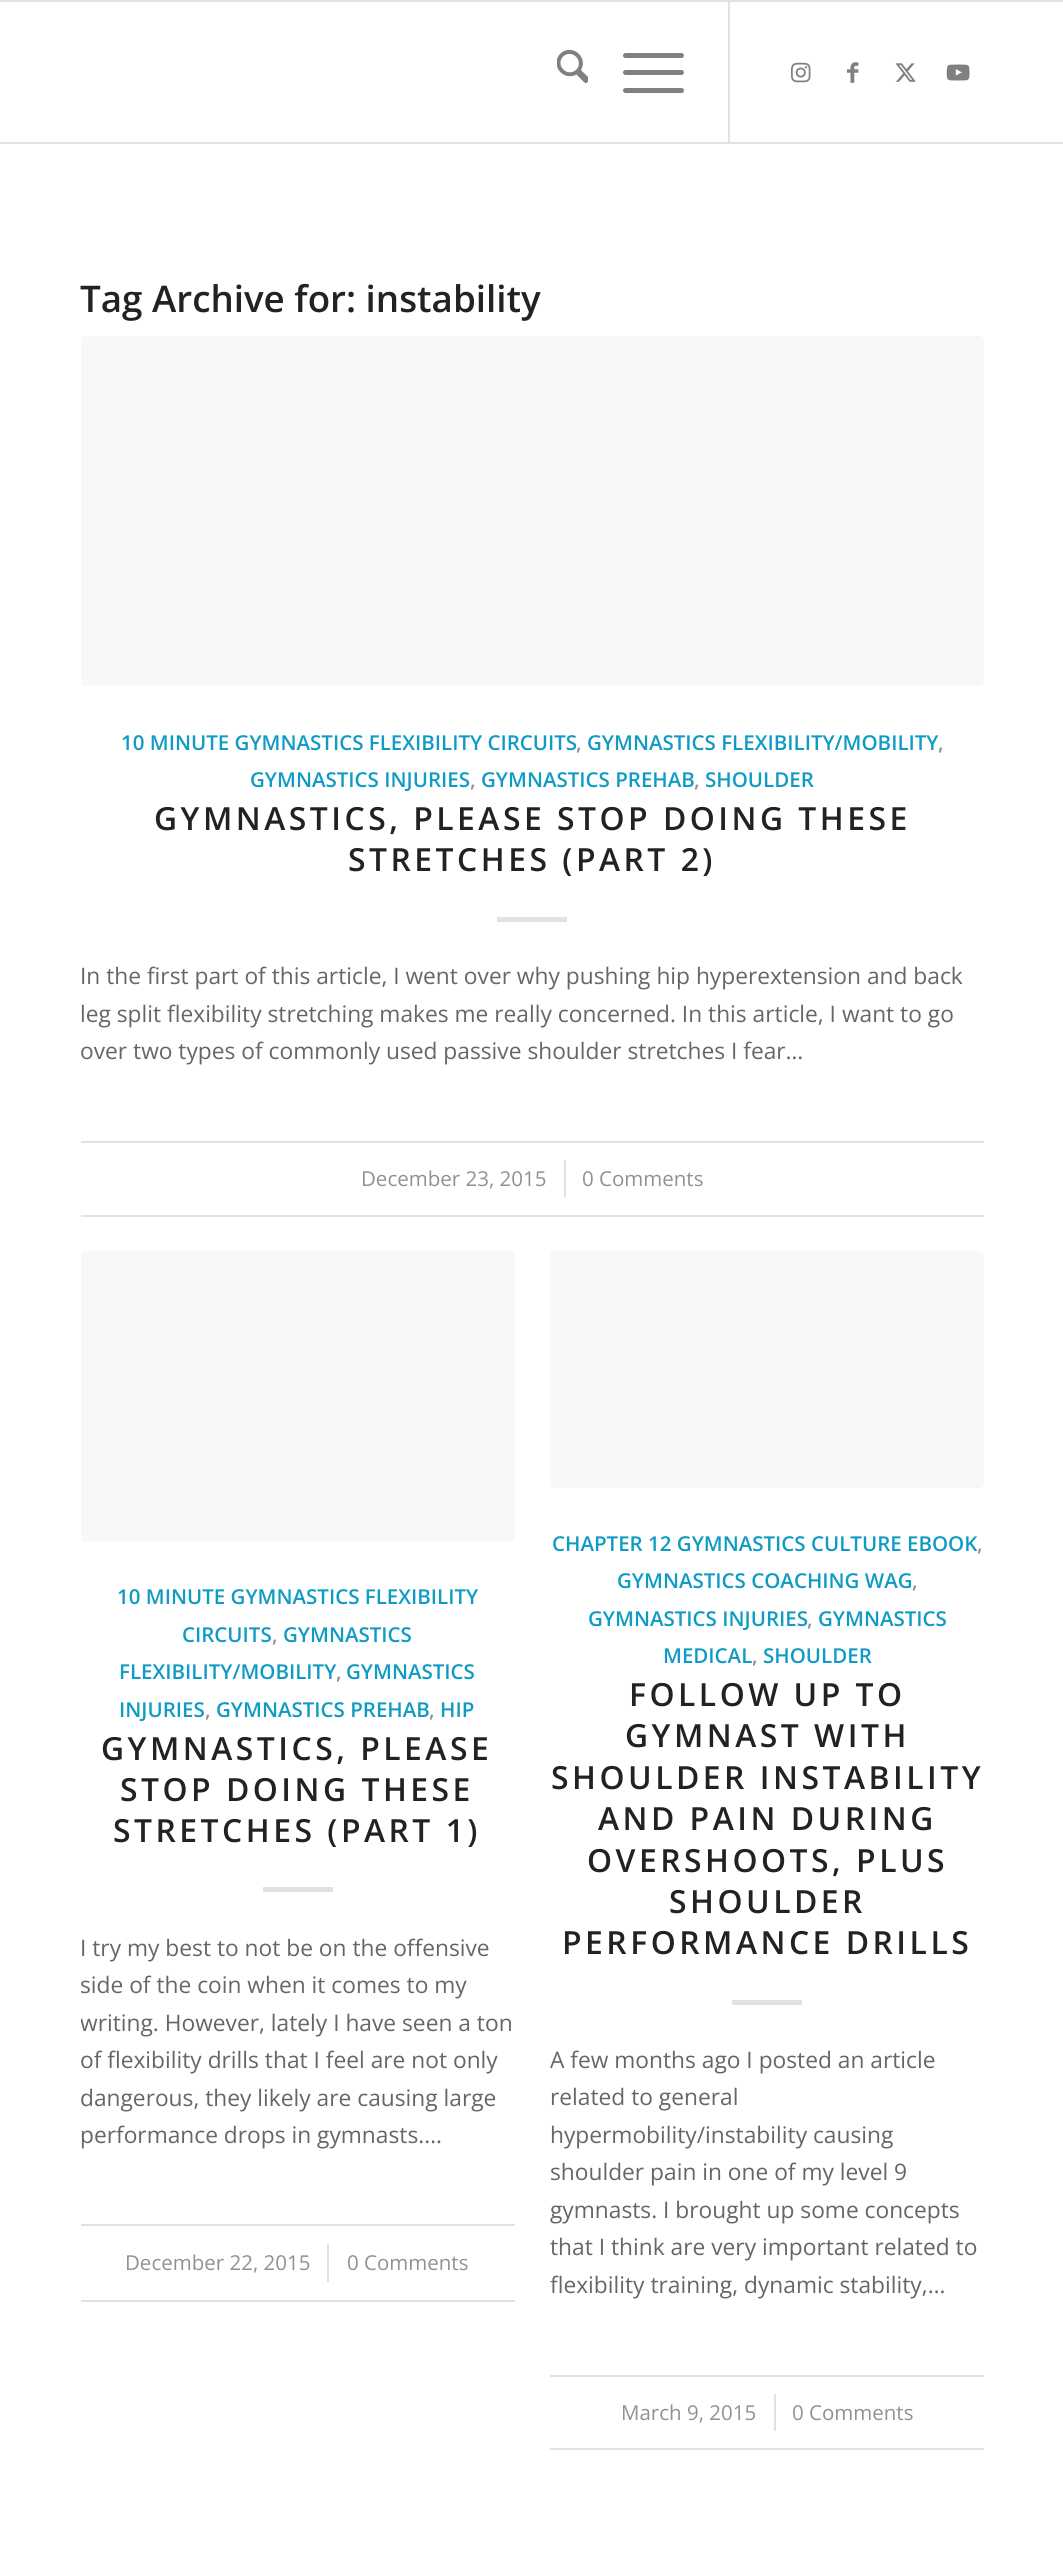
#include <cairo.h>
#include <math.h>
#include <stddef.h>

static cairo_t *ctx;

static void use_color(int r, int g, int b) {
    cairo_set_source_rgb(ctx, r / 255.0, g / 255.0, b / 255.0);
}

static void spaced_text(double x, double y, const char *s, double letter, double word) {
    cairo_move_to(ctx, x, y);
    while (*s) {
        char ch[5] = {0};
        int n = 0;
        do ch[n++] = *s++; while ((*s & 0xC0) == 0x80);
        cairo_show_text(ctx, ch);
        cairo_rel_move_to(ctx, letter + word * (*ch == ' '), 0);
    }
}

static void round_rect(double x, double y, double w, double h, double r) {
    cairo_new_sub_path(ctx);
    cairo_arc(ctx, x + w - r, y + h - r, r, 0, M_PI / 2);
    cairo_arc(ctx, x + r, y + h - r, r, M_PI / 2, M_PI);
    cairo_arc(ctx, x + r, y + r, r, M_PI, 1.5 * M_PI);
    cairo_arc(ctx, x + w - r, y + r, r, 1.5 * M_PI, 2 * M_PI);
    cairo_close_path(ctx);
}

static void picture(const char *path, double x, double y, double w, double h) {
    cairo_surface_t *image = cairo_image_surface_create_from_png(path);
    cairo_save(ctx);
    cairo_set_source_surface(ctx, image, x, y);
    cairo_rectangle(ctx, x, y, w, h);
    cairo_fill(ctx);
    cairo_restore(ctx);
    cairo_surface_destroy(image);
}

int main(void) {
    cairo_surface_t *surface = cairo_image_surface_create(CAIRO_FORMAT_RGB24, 1063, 2551);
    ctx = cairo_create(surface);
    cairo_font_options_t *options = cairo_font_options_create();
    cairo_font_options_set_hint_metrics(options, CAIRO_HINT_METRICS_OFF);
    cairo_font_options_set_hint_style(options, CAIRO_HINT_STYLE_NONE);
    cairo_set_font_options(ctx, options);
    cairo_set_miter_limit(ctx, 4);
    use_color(255, 255, 255);
    cairo_paint(ctx);
    use_color(225, 225, 225);
    cairo_rectangle(ctx, 0, 0, 1063, 2);
    cairo_fill(ctx);
    cairo_rectangle(ctx, 0, 142, 1063, 2);
    cairo_fill(ctx);
    cairo_rectangle(ctx, 728, 2, 2, 140);
    cairo_fill(ctx);
    picture("img1.png", 557, 49, 31, 35);
    use_color(128, 128, 128);
    round_rect(623, 70, 61, 5, 2.5);
    cairo_fill(ctx);
    round_rect(623, 53, 61, 5, 2.5);
    cairo_fill(ctx);
    round_rect(623, 88, 61, 5, 2.5);
    cairo_fill(ctx);
    picture("img2.png", 791, 62, 20, 21);
    picture("img3.png", 847, 62, 12, 21);
    picture("img4.png", 895, 63, 21, 19);
    picture("img5.png", 946, 64, 24, 17);
    cairo_select_font_face(ctx, "Open Sans SemiBold", CAIRO_FONT_SLANT_NORMAL, CAIRO_FONT_WEIGHT_NORMAL);
    cairo_set_font_size(ctx, 36.75);
    use_color(34, 34, 34);
    cairo_move_to(ctx, 80, 312);
    cairo_show_text(ctx, "Tag Archive for: instability");
    use_color(248, 248, 248);
    round_rect(81, 336, 903, 350, 5);
    cairo_fill(ctx);
    cairo_set_font_size(ctx, 20.5);
    use_color(16, 155, 197);
    cairo_move_to(ctx, 121, 750);
    cairo_show_text(ctx, "10 MINUTE GYMNASTICS FLEXIBILITY CIRCUITS");
    use_color(145, 145, 145);
    cairo_move_to(ctx, 576, 750);
    cairo_show_text(ctx, ",");
    use_color(16, 155, 197);
    cairo_move_to(ctx, 587, 750);
    cairo_show_text(ctx, "GYMNASTICS FLEXIBILITY/MOBILITY");
    use_color(145, 145, 145);
    cairo_move_to(ctx, 938, 750);
    cairo_show_text(ctx, ",");
    use_color(16, 155, 197);
    cairo_move_to(ctx, 250, 787);
    cairo_show_text(ctx, "GYMNASTICS INJURIES");
    use_color(145, 145, 145);
    cairo_move_to(ctx, 470, 787);
    cairo_show_text(ctx, ",");
    use_color(16, 155, 197);
    cairo_move_to(ctx, 481, 787);
    cairo_show_text(ctx, "GYMNASTICS PREHAB");
    use_color(145, 145, 145);
    cairo_move_to(ctx, 694, 787);
    cairo_show_text(ctx, ",");
    use_color(16, 155, 197);
    cairo_move_to(ctx, 705, 787);
    cairo_show_text(ctx, "SHOULDER");
    cairo_set_font_size(ctx, 31.85);
    use_color(34, 34, 34);
    spaced_text(154, 830, "GYMNASTICS, PLEASE STOP DOING THESE", 3.5, 0);
    spaced_text(348, 871, "STRETCHES (PART 2)", 3.5, 0);
    use_color(225, 225, 225);
    cairo_rectangle(ctx, 497, 917, 70, 5);
    cairo_fill(ctx);
    cairo_select_font_face(ctx, "Open Sans", CAIRO_FONT_SLANT_NORMAL, CAIRO_FONT_WEIGHT_NORMAL);
    cairo_set_font_size(ctx, 22.75);
    use_color(102, 102, 102);
    cairo_move_to(ctx, 80, 984);
    cairo_show_text(ctx, "In the first part of this article, I went over why pushing hip hyperextension and back");
    cairo_move_to(ctx, 80, 1022);
    cairo_show_text(ctx, "leg split flexibility stretching makes me really concerned. In this article, I want to go");
    cairo_move_to(ctx, 80, 1059);
    cairo_show_text(ctx, "over two types of commonly used passive shoulder stretches I fear…");
    use_color(225, 225, 225);
    cairo_rectangle(ctx, 81, 1141, 903, 2);
    cairo_fill(ctx);
    cairo_rectangle(ctx, 81, 1215, 903, 2);
    cairo_fill(ctx);
    cairo_set_font_size(ctx, 20.5);
    use_color(145, 145, 145);
    cairo_move_to(ctx, 361, 1186);
    cairo_show_text(ctx, "December 23, 2015");
    use_color(225, 225, 225);
    cairo_rectangle(ctx, 564, 1160, 2, 37);
    cairo_fill(ctx);
    use_color(145, 145, 145);
    cairo_move_to(ctx, 582, 1186);
    cairo_show_text(ctx, "0 Comments");
    use_color(248, 248, 248);
    round_rect(81, 1251, 434, 291, 5);
    cairo_fill(ctx);
    cairo_select_font_face(ctx, "Open Sans SemiBold", CAIRO_FONT_SLANT_NORMAL, CAIRO_FONT_WEIGHT_NORMAL);
    use_color(16, 155, 197);
    cairo_move_to(ctx, 117, 1604);
    cairo_show_text(ctx, "10 MINUTE GYMNASTICS FLEXIBILITY");
    cairo_move_to(ctx, 182, 1642);
    cairo_show_text(ctx, "CIRCUITS");
    use_color(145, 145, 145);
    cairo_move_to(ctx, 272, 1642);
    cairo_show_text(ctx, ",");
    use_color(16, 155, 197);
    cairo_move_to(ctx, 283, 1642);
    cairo_show_text(ctx, "GYMNASTICS");
    cairo_move_to(ctx, 119, 1679);
    cairo_show_text(ctx, "FLEXIBILITY/MOBILITY");
    use_color(145, 145, 145);
    cairo_move_to(ctx, 336, 1679);
    cairo_show_text(ctx, ",");
    use_color(16, 155, 197);
    cairo_move_to(ctx, 346, 1679);
    cairo_show_text(ctx, "GYMNASTICS");
    cairo_move_to(ctx, 119, 1717);
    cairo_show_text(ctx, "INJURIES");
    use_color(145, 145, 145);
    cairo_move_to(ctx, 205, 1717);
    cairo_show_text(ctx, ",");
    use_color(16, 155, 197);
    cairo_move_to(ctx, 216, 1717);
    cairo_show_text(ctx, "GYMNASTICS PREHAB");
    use_color(145, 145, 145);
    cairo_move_to(ctx, 429, 1717);
    cairo_show_text(ctx, ",");
    use_color(16, 155, 197);
    cairo_move_to(ctx, 440, 1717);
    cairo_show_text(ctx, "HIP");
    cairo_set_font_size(ctx, 31.85);
    use_color(34, 34, 34);
    spaced_text(101, 1760, "GYMNASTICS, PLEASE", 3.5, 0);
    spaced_text(120, 1801, "STOP DOING THESE", 3.5, 0);
    spaced_text(113, 1842, "STRETCHES (PART 1)", 3.5, 0);
    use_color(225, 225, 225);
    cairo_rectangle(ctx, 263, 1887, 70, 5);
    cairo_fill(ctx);
    cairo_select_font_face(ctx, "Open Sans", CAIRO_FONT_SLANT_NORMAL, CAIRO_FONT_WEIGHT_NORMAL);
    cairo_set_font_size(ctx, 22.75);
    use_color(102, 102, 102);
    cairo_move_to(ctx, 80, 1956);
    cairo_show_text(ctx, "I try my best to not be on the offensive");
    cairo_move_to(ctx, 80, 1993);
    cairo_show_text(ctx, "side of the coin when it comes to my");
    cairo_save(ctx);
    cairo_rectangle(ctx, 81, 1929, 434, 225);
    cairo_clip(ctx);
    cairo_move_to(ctx, 80, 2031);
    cairo_show_text(ctx, "writing. However, lately I have seen a ton");
    cairo_restore(ctx);
    cairo_move_to(ctx, 80, 2068);
    cairo_show_text(ctx, "of flexibility drills that I feel are not only");
    cairo_move_to(ctx, 80, 2106);
    cairo_show_text(ctx, "dangerous, they likely are causing large");
    cairo_move_to(ctx, 80, 2143);
    cairo_show_text(ctx, "performance drops in gymnasts.…");
    use_color(225, 225, 225);
    cairo_rectangle(ctx, 81, 2224, 434, 2);
    cairo_fill(ctx);
    cairo_rectangle(ctx, 81, 2300, 434, 2);
    cairo_fill(ctx);
    cairo_set_font_size(ctx, 20.5);
    use_color(145, 145, 145);
    cairo_move_to(ctx, 125, 2270);
    cairo_show_text(ctx, "December 22, 2015");
    use_color(225, 225, 225);
    cairo_rectangle(ctx, 327, 2244, 2, 38);
    cairo_fill(ctx);
    use_color(145, 145, 145);
    cairo_move_to(ctx, 347, 2270);
    cairo_show_text(ctx, "0 Comments");
    use_color(248, 248, 248);
    round_rect(550, 1251, 434, 237, 5);
    cairo_fill(ctx);
    cairo_select_font_face(ctx, "Open Sans SemiBold", CAIRO_FONT_SLANT_NORMAL, CAIRO_FONT_WEIGHT_NORMAL);
    use_color(16, 155, 197);
    cairo_move_to(ctx, 552, 1551);
    cairo_show_text(ctx, "CHAPTER 12 GYMNASTICS CULTURE EBOOK");
    use_color(145, 145, 145);
    cairo_move_to(ctx, 977, 1551);
    cairo_show_text(ctx, ",");
    use_color(16, 155, 197);
    cairo_move_to(ctx, 617, 1588);
    cairo_show_text(ctx, "GYMNASTICS COACHING WAG");
    use_color(145, 145, 145);
    cairo_move_to(ctx, 912, 1588);
    cairo_show_text(ctx, ",");
    use_color(16, 155, 197);
    cairo_move_to(ctx, 588, 1626);
    cairo_show_text(ctx, "GYMNASTICS INJURIES");
    use_color(145, 145, 145);
    cairo_move_to(ctx, 807, 1626);
    cairo_show_text(ctx, ",");
    use_color(16, 155, 197);
    cairo_move_to(ctx, 818, 1626);
    cairo_show_text(ctx, "GYMNASTICS");
    cairo_move_to(ctx, 663, 1663);
    cairo_show_text(ctx, "MEDICAL");
    use_color(145, 145, 145);
    cairo_move_to(ctx, 752, 1663);
    cairo_show_text(ctx, ",");
    use_color(16, 155, 197);
    cairo_move_to(ctx, 763, 1663);
    cairo_show_text(ctx, "SHOULDER");
    cairo_set_font_size(ctx, 31.85);
    use_color(34, 34, 34);
    spaced_text(629, 1706, "FOLLOW UP TO", 3.5, 0);
    spaced_text(625, 1747, "GYMNAST WITH", 3.5, 0);
    spaced_text(551, 1789, "SHOULDER INSTABILITY", 3.5, 0);
    spaced_text(598, 1830, "AND PAIN DURING", 3.5, 0);
    spaced_text(587, 1872, "OVERSHOOTS, PLUS", 3.5, 0);
    spaced_text(669, 1913, "SHOULDER", 3.5, 0);
    spaced_text(562, 1954, "PERFORMANCE DRILLS", 3.5, 0);
    use_color(225, 225, 225);
    cairo_rectangle(ctx, 732, 2000, 70, 5);
    cairo_fill(ctx);
    cairo_select_font_face(ctx, "Open Sans", CAIRO_FONT_SLANT_NORMAL, CAIRO_FONT_WEIGHT_NORMAL);
    cairo_set_font_size(ctx, 22.75);
    use_color(102, 102, 102);
    cairo_move_to(ctx, 550, 2068);
    cairo_show_text(ctx, "A few months ago I posted an article");
    cairo_move_to(ctx, 550, 2105);
    cairo_show_text(ctx, "related to general");
    cairo_move_to(ctx, 550, 2143);
    cairo_show_text(ctx, "hypermobility/instability causing");
    cairo_move_to(ctx, 550, 2180);
    cairo_show_text(ctx, "shoulder pain in one of my level 9");
    cairo_move_to(ctx, 550, 2218);
    cairo_show_text(ctx, "gymnasts. I brought up some concepts");
    cairo_move_to(ctx, 550, 2255);
    cairo_show_text(ctx, "that I think are very important related to");
    cairo_move_to(ctx, 550, 2293);
    cairo_show_text(ctx, "flexibility training, dynamic stability,…");
    use_color(225, 225, 225);
    cairo_rectangle(ctx, 550, 2375, 434, 2);
    cairo_fill(ctx);
    cairo_rectangle(ctx, 550, 2448, 434, 2);
    cairo_fill(ctx);
    cairo_set_font_size(ctx, 20.5);
    use_color(145, 145, 145);
    cairo_move_to(ctx, 621, 2420);
    cairo_show_text(ctx, "March 9, 2015");
    use_color(225, 225, 225);
    cairo_rectangle(ctx, 774, 2394, 2, 37);
    cairo_fill(ctx);
    use_color(145, 145, 145);
    cairo_move_to(ctx, 792, 2420);
    cairo_show_text(ctx, "0 Comments");
    cairo_surface_write_to_png(surface, "result.png");
    cairo_font_options_destroy(options);
    cairo_destroy(ctx);
    cairo_surface_destroy(surface);
    return 0;
}
